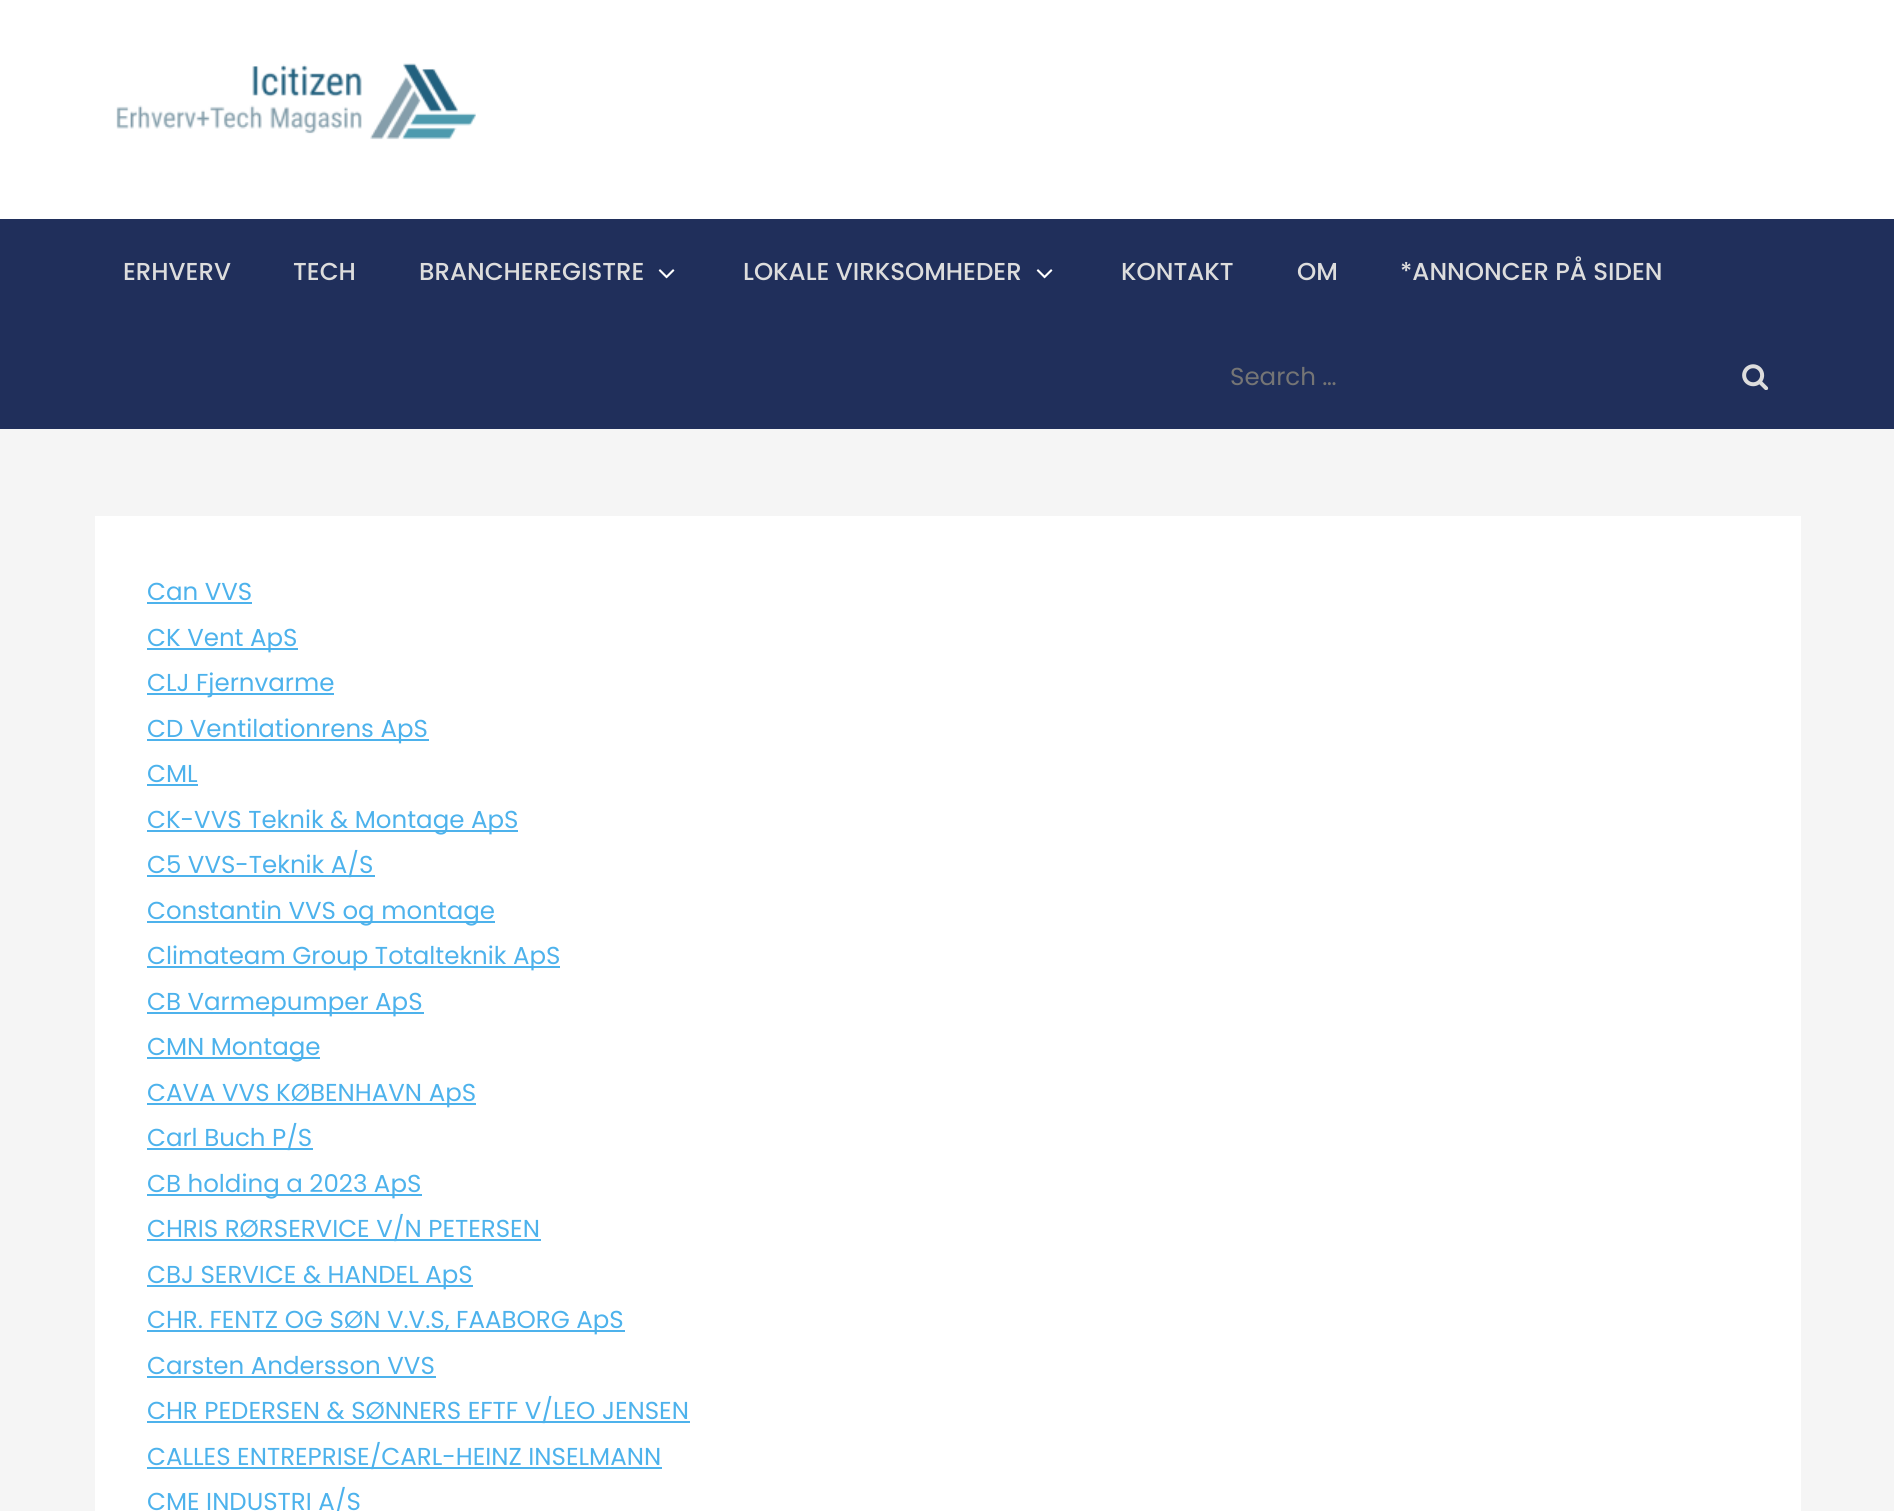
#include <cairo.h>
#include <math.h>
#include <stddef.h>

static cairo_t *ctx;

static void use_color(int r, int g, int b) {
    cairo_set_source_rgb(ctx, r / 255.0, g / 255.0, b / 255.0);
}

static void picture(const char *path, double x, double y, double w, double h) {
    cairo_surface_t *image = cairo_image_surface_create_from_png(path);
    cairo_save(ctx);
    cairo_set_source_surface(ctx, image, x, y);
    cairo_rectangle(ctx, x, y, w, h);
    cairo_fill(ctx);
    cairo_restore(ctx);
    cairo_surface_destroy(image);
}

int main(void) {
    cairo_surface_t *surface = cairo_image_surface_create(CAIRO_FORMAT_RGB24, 1894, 1511);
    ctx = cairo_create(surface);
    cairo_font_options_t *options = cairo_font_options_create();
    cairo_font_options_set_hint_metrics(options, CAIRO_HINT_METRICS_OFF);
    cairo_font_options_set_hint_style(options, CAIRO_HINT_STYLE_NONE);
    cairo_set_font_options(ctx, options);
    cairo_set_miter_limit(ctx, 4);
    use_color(245, 245, 245);
    cairo_paint(ctx);
    use_color(255, 255, 255);
    cairo_rectangle(ctx, 0, 0, 1894, 219);
    cairo_fill(ctx);
    picture("img1.png", 116, 63, 360, 77);
    use_color(32, 47, 91);
    cairo_rectangle(ctx, 0, 219, 1894, 210);
    cairo_fill(ctx);
    cairo_select_font_face(ctx, "Poppins Medium", CAIRO_FONT_SLANT_NORMAL, CAIRO_FONT_WEIGHT_NORMAL);
    cairo_set_font_size(ctx, 24.5);
    use_color(221, 221, 221);
    cairo_move_to(ctx, 123, 280);
    cairo_show_text(ctx, "ERHVERV");
    cairo_move_to(ctx, 293, 280);
    cairo_show_text(ctx, "TECH");
    cairo_move_to(ctx, 419, 280);
    cairo_show_text(ctx, "BRANCHEREGISTRE");
    picture("img2.png", 658, 269, 17, 10);
    cairo_move_to(ctx, 743, 280);
    cairo_show_text(ctx, "LOKALE VIRKSOMHEDER");
    picture("img2.png", 1036, 269, 17, 10);
    cairo_move_to(ctx, 1121, 280);
    cairo_show_text(ctx, "KONTAKT");
    cairo_move_to(ctx, 1297, 280);
    cairo_show_text(ctx, "OM");
    cairo_move_to(ctx, 1400, 280);
    cairo_show_text(ctx, "*ANNONCER PÅ SIDEN");
    cairo_select_font_face(ctx, "Poppins", CAIRO_FONT_SLANT_NORMAL, CAIRO_FONT_WEIGHT_NORMAL);
    use_color(117, 117, 117);
    cairo_move_to(ctx, 1230, 385);
    cairo_show_text(ctx, "Search …");
    picture("img3.png", 1742, 364, 27, 26);
    use_color(255, 255, 255);
    cairo_rectangle(ctx, 95, 516, 1706, 995);
    cairo_fill(ctx);
    use_color(77, 178, 236);
    cairo_move_to(ctx, 147, 600);
    cairo_show_text(ctx, "Can VVS");
    cairo_rectangle(ctx, 147, 602, 105, 2);
    cairo_fill(ctx);
    cairo_rectangle(ctx, 147, 648, 151, 2);
    cairo_fill(ctx);
    cairo_move_to(ctx, 147, 646);
    cairo_show_text(ctx, "CK Vent ApS");
    cairo_rectangle(ctx, 147, 693, 187, 2);
    cairo_fill(ctx);
    cairo_move_to(ctx, 147, 691);
    cairo_show_text(ctx, "CLJ Fjernvarme");
    cairo_rectangle(ctx, 147, 739, 282, 2);
    cairo_fill(ctx);
    cairo_move_to(ctx, 147, 737);
    cairo_show_text(ctx, "CD Ventilationrens ApS");
    cairo_move_to(ctx, 147, 782);
    cairo_show_text(ctx, "CML");
    cairo_rectangle(ctx, 147, 784, 51, 2);
    cairo_fill(ctx);
    cairo_rectangle(ctx, 147, 830, 371, 2);
    cairo_fill(ctx);
    cairo_move_to(ctx, 147, 828);
    cairo_show_text(ctx, "CK-VVS Teknik & Montage ApS");
    cairo_rectangle(ctx, 147, 875, 228, 2);
    cairo_fill(ctx);
    cairo_move_to(ctx, 147, 873);
    cairo_show_text(ctx, "C5 VVS-Teknik A/S");
    cairo_rectangle(ctx, 147, 921, 348, 2);
    cairo_fill(ctx);
    cairo_move_to(ctx, 147, 919);
    cairo_show_text(ctx, "Constantin VVS og montage");
    cairo_rectangle(ctx, 147, 966, 413, 2);
    cairo_fill(ctx);
    cairo_move_to(ctx, 147, 964);
    cairo_show_text(ctx, "Climateam Group Totalteknik ApS");
    cairo_rectangle(ctx, 147, 1012, 277, 2);
    cairo_fill(ctx);
    cairo_move_to(ctx, 147, 1010);
    cairo_show_text(ctx, "CB Varmepumper ApS");
    cairo_rectangle(ctx, 147, 1057, 173, 2);
    cairo_fill(ctx);
    cairo_move_to(ctx, 147, 1055);
    cairo_show_text(ctx, "CMN Montage");
    cairo_rectangle(ctx, 147, 1103, 329, 2);
    cairo_fill(ctx);
    cairo_move_to(ctx, 147, 1101);
    cairo_show_text(ctx, "CAVA VVS KØBENHAVN ApS");
    cairo_rectangle(ctx, 147, 1148, 166, 2);
    cairo_fill(ctx);
    cairo_move_to(ctx, 147, 1146);
    cairo_show_text(ctx, "Carl Buch P/S");
    cairo_rectangle(ctx, 147, 1194, 275, 2);
    cairo_fill(ctx);
    cairo_move_to(ctx, 147, 1192);
    cairo_show_text(ctx, "CB holding a 2023 ApS");
    cairo_rectangle(ctx, 147, 1239, 394, 2);
    cairo_fill(ctx);
    cairo_move_to(ctx, 147, 1237);
    cairo_show_text(ctx, "CHRIS RØRSERVICE V/N PETERSEN");
    cairo_rectangle(ctx, 147, 1285, 326, 2);
    cairo_fill(ctx);
    cairo_move_to(ctx, 147, 1283);
    cairo_show_text(ctx, "CBJ SERVICE & HANDEL ApS");
    cairo_rectangle(ctx, 147, 1330, 478, 2);
    cairo_fill(ctx);
    cairo_move_to(ctx, 147, 1328);
    cairo_show_text(ctx, "CHR. FENTZ OG SØN V.V.S, FAABORG ApS");
    cairo_move_to(ctx, 147, 1374);
    cairo_show_text(ctx, "Carsten Andersson VVS");
    cairo_rectangle(ctx, 147, 1376, 289, 2);
    cairo_fill(ctx);
    cairo_rectangle(ctx, 147, 1421, 543, 2);
    cairo_fill(ctx);
    cairo_move_to(ctx, 147, 1419);
    cairo_show_text(ctx, "CHR PEDERSEN & SØNNERS EFTF V/LEO JENSEN");
    cairo_rectangle(ctx, 147, 1467, 515, 2);
    cairo_fill(ctx);
    cairo_move_to(ctx, 147, 1465);
    cairo_show_text(ctx, "CALLES ENTREPRISE/CARL-HEINZ INSELMANN");
    cairo_move_to(ctx, 147, 1510);
    cairo_show_text(ctx, "CME INDUSTRI A/S");
    cairo_surface_write_to_png(surface, "result.png");
    cairo_font_options_destroy(options);
    cairo_destroy(ctx);
    cairo_surface_destroy(surface);
    return 0;
}
